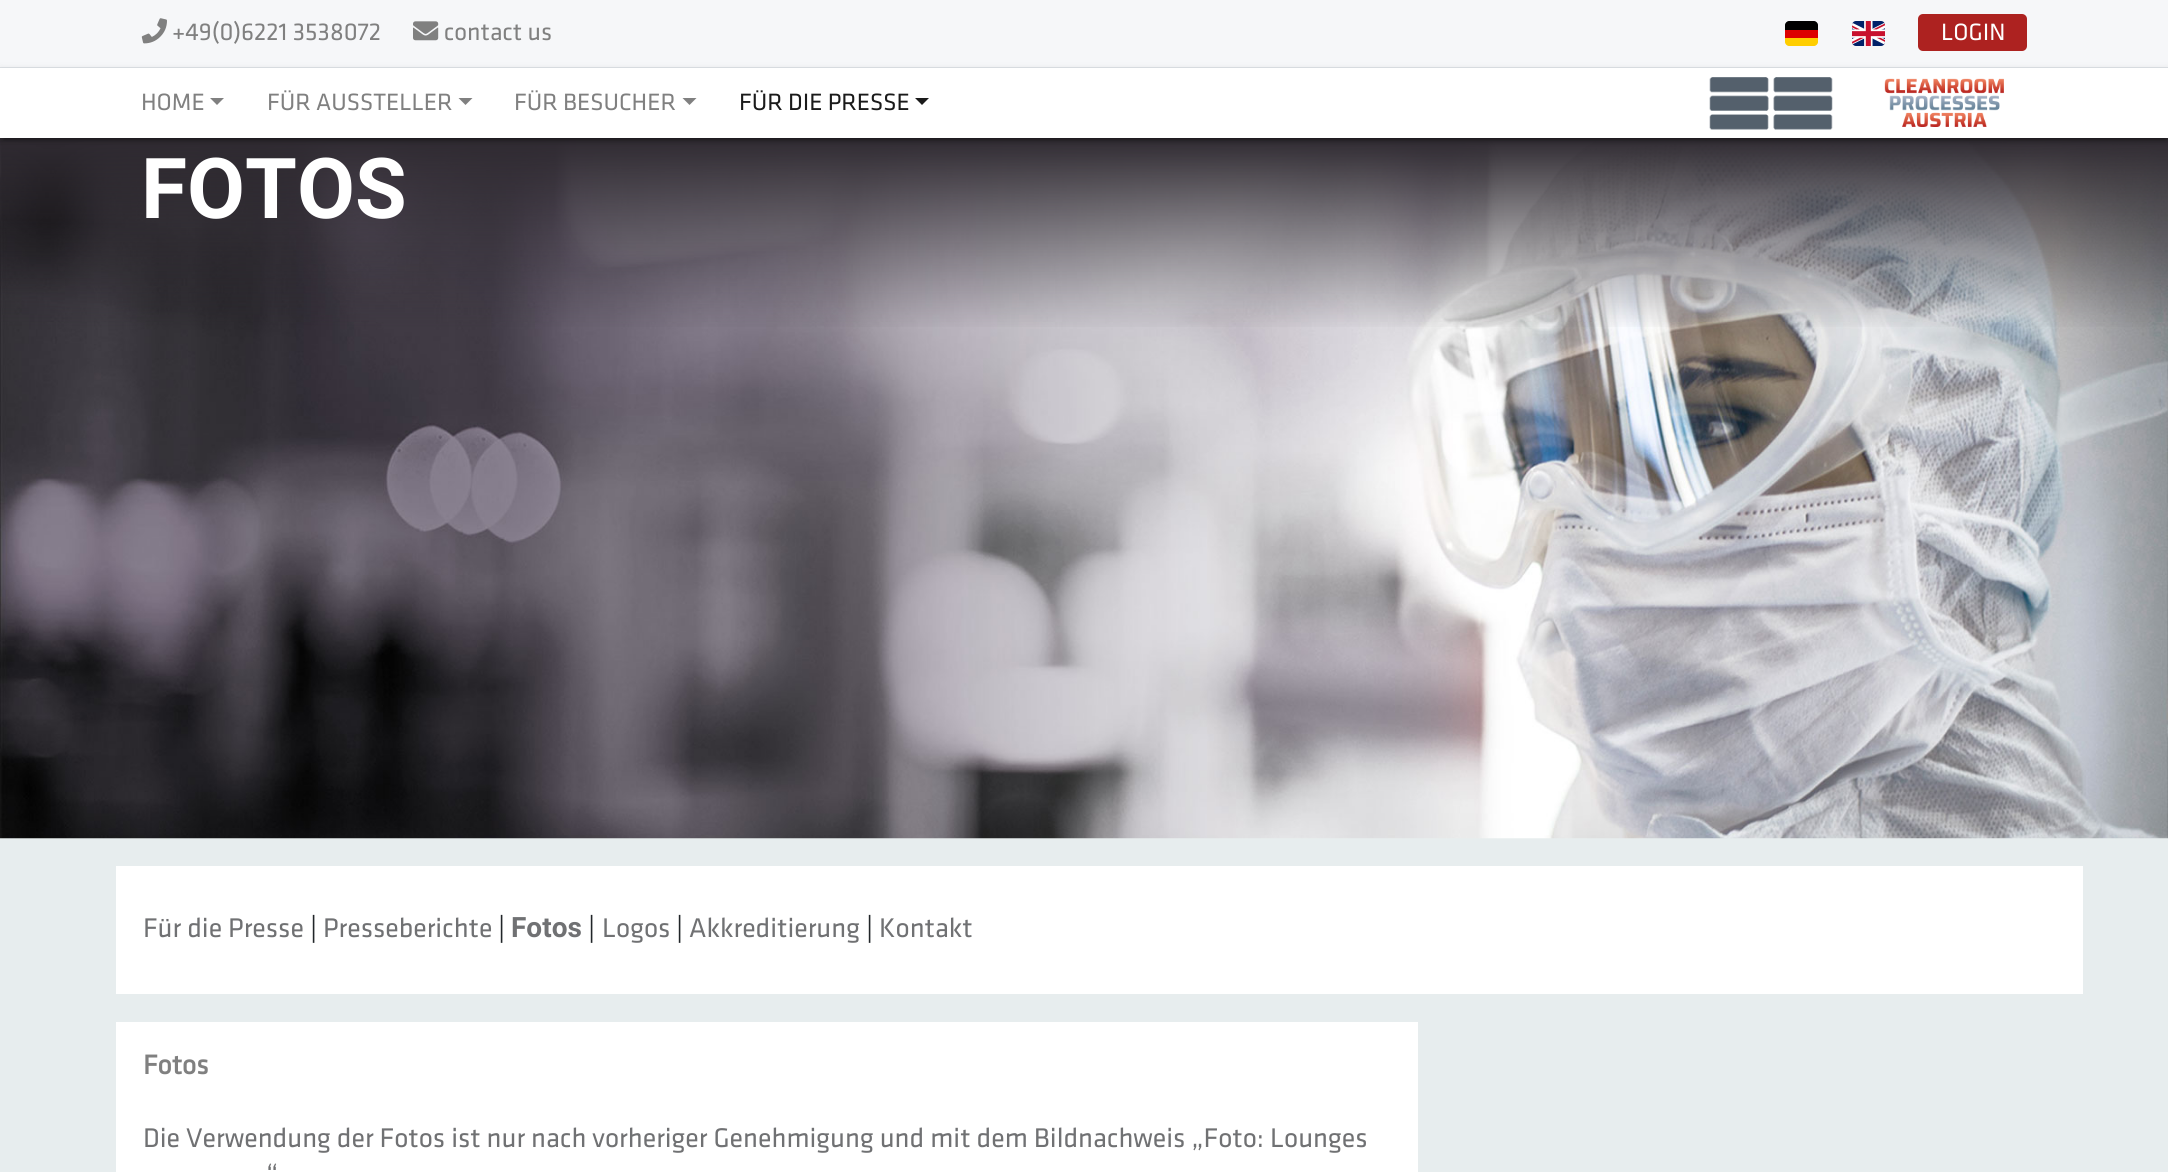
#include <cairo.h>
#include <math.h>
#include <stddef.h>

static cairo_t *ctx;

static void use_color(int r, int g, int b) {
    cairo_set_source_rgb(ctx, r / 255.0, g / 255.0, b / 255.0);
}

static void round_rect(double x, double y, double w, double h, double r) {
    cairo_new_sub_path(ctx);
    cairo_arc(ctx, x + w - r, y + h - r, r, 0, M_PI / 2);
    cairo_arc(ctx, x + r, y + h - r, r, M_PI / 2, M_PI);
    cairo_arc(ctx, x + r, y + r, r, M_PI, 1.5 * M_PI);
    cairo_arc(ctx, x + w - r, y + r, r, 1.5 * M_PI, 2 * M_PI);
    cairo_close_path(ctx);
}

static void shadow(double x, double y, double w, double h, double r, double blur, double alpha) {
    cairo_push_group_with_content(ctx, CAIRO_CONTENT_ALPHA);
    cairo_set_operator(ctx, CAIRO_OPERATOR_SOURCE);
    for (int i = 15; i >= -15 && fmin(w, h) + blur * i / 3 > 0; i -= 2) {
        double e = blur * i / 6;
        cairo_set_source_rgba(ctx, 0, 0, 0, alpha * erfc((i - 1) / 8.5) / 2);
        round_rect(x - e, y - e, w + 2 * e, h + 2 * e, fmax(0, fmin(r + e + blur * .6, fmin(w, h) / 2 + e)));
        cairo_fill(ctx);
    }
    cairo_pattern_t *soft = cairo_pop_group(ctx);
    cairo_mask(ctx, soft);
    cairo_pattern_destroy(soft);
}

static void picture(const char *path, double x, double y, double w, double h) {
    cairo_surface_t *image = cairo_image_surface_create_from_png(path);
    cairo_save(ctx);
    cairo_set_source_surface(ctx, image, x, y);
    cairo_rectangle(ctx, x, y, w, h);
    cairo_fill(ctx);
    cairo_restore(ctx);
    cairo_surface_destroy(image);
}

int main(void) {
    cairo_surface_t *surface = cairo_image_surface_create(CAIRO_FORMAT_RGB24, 2168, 1172);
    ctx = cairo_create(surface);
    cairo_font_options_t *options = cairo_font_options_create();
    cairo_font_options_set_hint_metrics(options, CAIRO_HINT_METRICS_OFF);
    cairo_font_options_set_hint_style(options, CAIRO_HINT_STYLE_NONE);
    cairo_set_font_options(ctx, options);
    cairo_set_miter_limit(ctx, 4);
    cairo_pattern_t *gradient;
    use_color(231, 237, 238);
    cairo_paint(ctx);
    use_color(246, 247, 249);
    cairo_rectangle(ctx, 0, 0, 2168, 67);
    cairo_fill(ctx);
    use_color(222, 226, 230);
    cairo_rectangle(ctx, 0, 67, 2168, 1);
    cairo_fill(ctx);
    picture("img1.png", 141, 18, 26, 26);
    cairo_select_font_face(ctx, "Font", CAIRO_FONT_SLANT_NORMAL, CAIRO_FONT_WEIGHT_NORMAL);
    cairo_set_font_size(ctx, 25.25);
    use_color(128, 128, 128);
    cairo_move_to(ctx, 172, 40);
    cairo_show_text(ctx, "+49(0)6221 3538072");
    picture("img2.png", 413, 21, 26, 20);
    cairo_move_to(ctx, 444, 40);
    cairo_show_text(ctx, "contact us");
    use_color(255, 206, 0);
    cairo_new_path(ctx);
    cairo_move_to(ctx, 1785, 38);
    cairo_line_to(ctx, 1818, 38);
    cairo_line_to(ctx, 1818, 42);
    cairo_curve_to(ctx, 1818, 44, 1816, 46, 1814, 46);
    cairo_line_to(ctx, 1789, 46);
    cairo_curve_to(ctx, 1787, 46, 1785, 44, 1785, 42);
    cairo_close_path(ctx);
    cairo_fill(ctx);
    use_color(0, 0, 0);
    cairo_new_path(ctx);
    cairo_move_to(ctx, 1789, 21);
    cairo_line_to(ctx, 1814, 21);
    cairo_curve_to(ctx, 1816, 21, 1818, 23, 1818, 25);
    cairo_line_to(ctx, 1818, 30);
    cairo_line_to(ctx, 1785, 30);
    cairo_line_to(ctx, 1785, 25);
    cairo_curve_to(ctx, 1785, 23, 1787, 21, 1789, 21);
    cairo_close_path(ctx);
    cairo_fill(ctx);
    use_color(221, 0, 0);
    cairo_rectangle(ctx, 1785, 30, 33, 8);
    cairo_fill(ctx);
    picture("img3.png", 1852, 21, 33, 25);
    use_color(173, 34, 32);
    round_rect(1918, 14, 109, 37, 5);
    cairo_fill(ctx);
    cairo_set_font_size(ctx, 24.5);
    use_color(255, 255, 255);
    cairo_move_to(ctx, 1941, 40);
    cairo_show_text(ctx, "LOGIN");
    picture("img6.png", 0, 139, 2168, 700);
    gradient = cairo_pattern_create_linear(1084, 138, 1084, 331);
    cairo_pattern_add_color_stop_rgba(gradient, 0, 0.184, 0.165, 0.192, 1);
    cairo_pattern_add_color_stop_rgba(gradient, 1, 0.184, 0.165, 0.192, 0);
    cairo_set_source(ctx, gradient);
    cairo_pattern_destroy(gradient);
    cairo_rectangle(ctx, 0, 138, 2168, 189);
    cairo_fill(ctx);
    use_color(0, 0, 0);
    shadow(0, 70, 2168, 70, 0, 4.5, 0.12);
    shadow(4, 77, 2161, 63, 0, 1, 0.2);
    shadow(0, 72, 2168, 70, 0, 2, 0.14);
    use_color(255, 255, 255);
    cairo_rectangle(ctx, 0, 68, 2168, 70);
    cairo_fill(ctx);
    use_color(128, 128, 128);
    cairo_move_to(ctx, 141, 110);
    cairo_show_text(ctx, "HOME");
    cairo_new_path(ctx);
    cairo_move_to(ctx, 210, 98);
    cairo_line_to(ctx, 224, 98);
    cairo_line_to(ctx, 217, 105);
    cairo_close_path(ctx);
    cairo_fill(ctx);
    cairo_move_to(ctx, 267, 110);
    cairo_show_text(ctx, "FÜR AUSSTELLER");
    cairo_new_path(ctx);
    cairo_move_to(ctx, 458.5, 98);
    cairo_line_to(ctx, 472.5, 98);
    cairo_line_to(ctx, 465.5, 105);
    cairo_close_path(ctx);
    cairo_fill(ctx);
    cairo_move_to(ctx, 514, 110);
    cairo_show_text(ctx, "FÜR BESUCHER");
    cairo_new_path(ctx);
    cairo_move_to(ctx, 682.5, 98);
    cairo_line_to(ctx, 696.5, 98);
    cairo_line_to(ctx, 689.5, 105);
    cairo_close_path(ctx);
    cairo_fill(ctx);
    use_color(26, 26, 26);
    cairo_move_to(ctx, 739, 110);
    cairo_show_text(ctx, "FÜR DIE PRESSE");
    cairo_new_path(ctx);
    cairo_move_to(ctx, 915, 98);
    cairo_line_to(ctx, 929, 98);
    cairo_line_to(ctx, 922, 105);
    cairo_close_path(ctx);
    cairo_fill(ctx);
    picture("img4.png", 1709, 77, 124, 53);
    picture("img5.png", 1884, 78, 120, 49);
    cairo_select_font_face(ctx, "Roboto", CAIRO_FONT_SLANT_NORMAL, CAIRO_FONT_WEIGHT_BOLD);
    cairo_set_font_size(ctx, 84);
    use_color(255, 255, 255);
    cairo_move_to(ctx, 141, 218);
    cairo_show_text(ctx, "FOTOS");
    cairo_rectangle(ctx, 116, 866, 1967, 128);
    cairo_fill(ctx);
    cairo_select_font_face(ctx, "Font", CAIRO_FONT_SLANT_NORMAL, CAIRO_FONT_WEIGHT_NORMAL);
    cairo_set_font_size(ctx, 28);
    use_color(112, 113, 115);
    cairo_move_to(ctx, 143, 937);
    cairo_show_text(ctx, "Für die Presse");
    use_color(33, 37, 41);
    cairo_move_to(ctx, 310, 937);
    cairo_show_text(ctx, "|");
    use_color(112, 113, 115);
    cairo_move_to(ctx, 323, 937);
    cairo_show_text(ctx, "Presseberichte");
    use_color(33, 37, 41);
    cairo_move_to(ctx, 498, 937);
    cairo_show_text(ctx, "|");
    cairo_select_font_face(ctx, "Roboto", CAIRO_FONT_SLANT_NORMAL, CAIRO_FONT_WEIGHT_BOLD);
    use_color(112, 113, 115);
    cairo_move_to(ctx, 511, 937);
    cairo_show_text(ctx, "Fotos");
    cairo_select_font_face(ctx, "Font", CAIRO_FONT_SLANT_NORMAL, CAIRO_FONT_WEIGHT_NORMAL);
    use_color(33, 37, 41);
    cairo_move_to(ctx, 588, 937);
    cairo_show_text(ctx, "|");
    use_color(112, 113, 115);
    cairo_move_to(ctx, 602, 937);
    cairo_show_text(ctx, "Logos");
    use_color(33, 37, 41);
    cairo_move_to(ctx, 676, 937);
    cairo_show_text(ctx, "|");
    use_color(112, 113, 115);
    cairo_move_to(ctx, 689, 937);
    cairo_show_text(ctx, "Akkreditierung");
    use_color(33, 37, 41);
    cairo_move_to(ctx, 866, 937);
    cairo_show_text(ctx, "|");
    use_color(112, 113, 115);
    cairo_move_to(ctx, 879, 937);
    cairo_show_text(ctx, "Kontakt");
    use_color(255, 255, 255);
    cairo_rectangle(ctx, 116, 1022, 1302, 150);
    cairo_fill(ctx);
    cairo_select_font_face(ctx, "Font", CAIRO_FONT_SLANT_NORMAL, CAIRO_FONT_WEIGHT_BOLD);
    use_color(128, 128, 128);
    cairo_move_to(ctx, 143, 1074);
    cairo_show_text(ctx, "Fotos");
    cairo_select_font_face(ctx, "Font", CAIRO_FONT_SLANT_NORMAL, CAIRO_FONT_WEIGHT_NORMAL);
    use_color(112, 113, 115);
    cairo_move_to(ctx, 143, 1147);
    cairo_show_text(ctx, "Die Verwendung der Fotos ist nur nach vorheriger Genehmigung und mit dem Bildnachweis „Foto: Lounges");
    cairo_move_to(ctx, 266, 1183);
    cairo_show_text(ctx, "“");
    cairo_surface_write_to_png(surface, "result.png");
    cairo_font_options_destroy(options);
    cairo_destroy(ctx);
    cairo_surface_destroy(surface);
    return 0;
}
